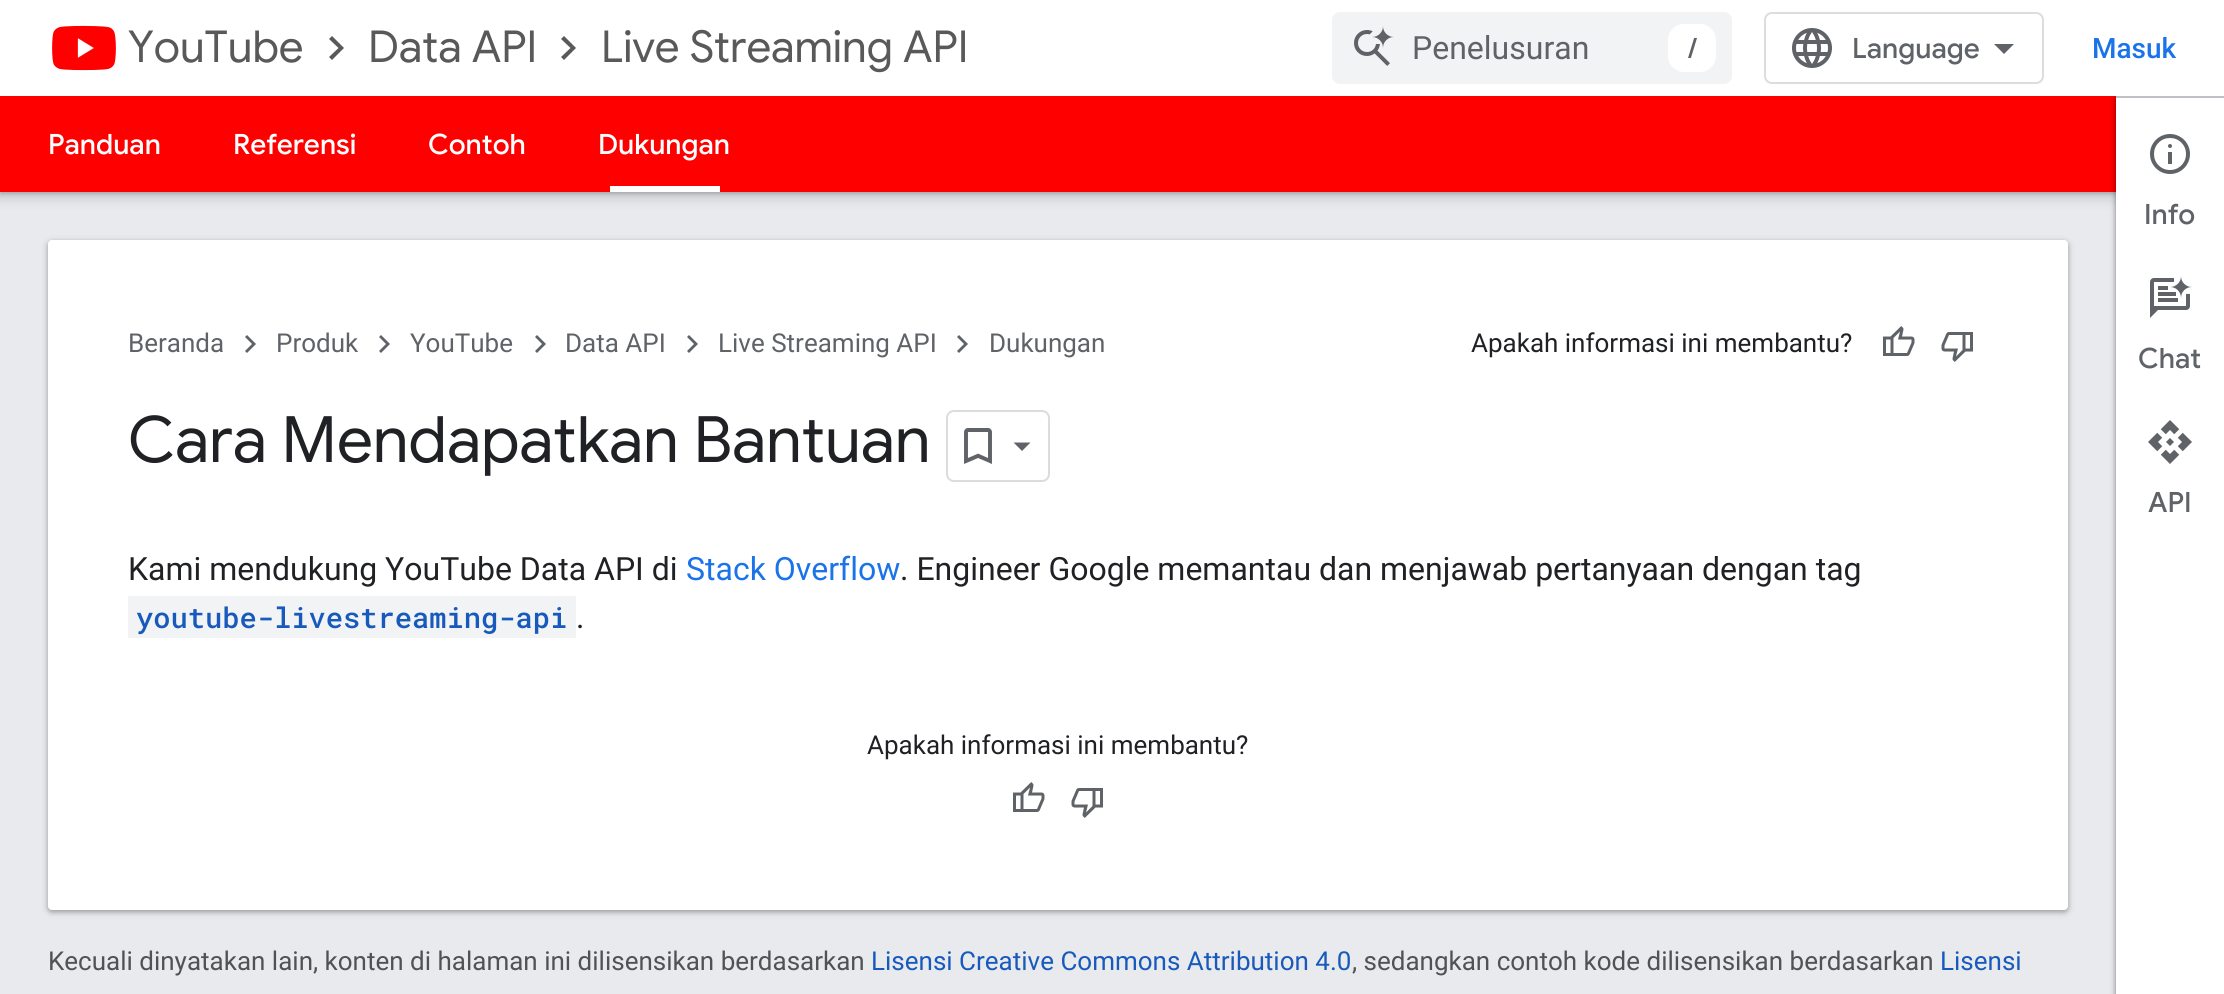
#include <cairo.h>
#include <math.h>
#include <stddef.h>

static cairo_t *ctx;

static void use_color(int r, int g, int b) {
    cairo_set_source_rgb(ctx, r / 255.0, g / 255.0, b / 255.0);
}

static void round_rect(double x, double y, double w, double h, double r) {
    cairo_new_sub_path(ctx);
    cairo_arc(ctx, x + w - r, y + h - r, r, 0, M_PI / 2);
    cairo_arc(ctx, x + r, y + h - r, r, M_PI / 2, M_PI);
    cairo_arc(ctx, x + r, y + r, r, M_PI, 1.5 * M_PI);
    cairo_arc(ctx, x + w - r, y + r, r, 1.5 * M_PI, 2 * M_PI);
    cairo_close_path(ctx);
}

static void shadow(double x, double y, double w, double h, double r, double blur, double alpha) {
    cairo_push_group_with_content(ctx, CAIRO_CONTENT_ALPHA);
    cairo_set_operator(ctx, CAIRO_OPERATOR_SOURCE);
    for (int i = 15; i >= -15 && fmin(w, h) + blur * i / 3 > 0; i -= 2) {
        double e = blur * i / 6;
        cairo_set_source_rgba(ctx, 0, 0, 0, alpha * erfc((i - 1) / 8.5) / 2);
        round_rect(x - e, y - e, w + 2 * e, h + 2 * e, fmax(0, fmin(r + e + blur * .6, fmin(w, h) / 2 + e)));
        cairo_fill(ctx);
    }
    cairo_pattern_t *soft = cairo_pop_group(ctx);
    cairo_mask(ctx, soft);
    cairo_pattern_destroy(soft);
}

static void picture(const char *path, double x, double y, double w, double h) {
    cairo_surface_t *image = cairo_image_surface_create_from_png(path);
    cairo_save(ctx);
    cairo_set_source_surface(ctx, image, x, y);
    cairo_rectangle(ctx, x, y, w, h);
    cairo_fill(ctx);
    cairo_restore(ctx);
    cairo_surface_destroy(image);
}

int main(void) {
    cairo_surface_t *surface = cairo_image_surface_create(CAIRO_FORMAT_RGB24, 2224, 994);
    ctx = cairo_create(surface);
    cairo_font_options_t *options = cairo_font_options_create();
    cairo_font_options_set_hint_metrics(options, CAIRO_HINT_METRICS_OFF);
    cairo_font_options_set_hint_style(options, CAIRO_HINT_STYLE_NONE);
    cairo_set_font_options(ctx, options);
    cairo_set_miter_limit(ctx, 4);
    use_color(232, 234, 237);
    cairo_paint(ctx);
    use_color(60, 64, 67);
    shadow(-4, 96, 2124, 104, 0, 6, 0.15);
    shadow(0, 98, 2116, 96, 0, 2, 0.3);
    use_color(255, 0, 0);
    cairo_rectangle(ctx, 0, 96, 2116, 96);
    cairo_fill(ctx);
    use_color(0, 0, 0);
    shadow(2114, 96, 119, 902, 0, 3, 0.15);
    shadow(2116, 98, 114, 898, 0, 2, 0.3);
    use_color(255, 255, 255);
    cairo_rectangle(ctx, 0, 0, 2224, 96);
    cairo_fill(ctx);
    picture("img1.png", 52, 25, 64, 46);
    cairo_select_font_face(ctx, "Google Sans", CAIRO_FONT_SLANT_NORMAL, CAIRO_FONT_WEIGHT_NORMAL);
    cairo_set_font_size(ctx, 44);
    use_color(89, 89, 89);
    cairo_move_to(ctx, 128, 62);
    cairo_show_text(ctx, "YouTube");
    cairo_new_path(ctx);
    cairo_move_to(ctx, 332, 36);
    cairo_line_to(ctx, 344, 48);
    cairo_line_to(ctx, 332, 60);
    cairo_line_to(ctx, 329, 57);
    cairo_line_to(ctx, 338.5, 48);
    cairo_line_to(ctx, 329, 39);
    cairo_close_path(ctx);
    cairo_fill(ctx);
    cairo_move_to(ctx, 368, 62);
    cairo_show_text(ctx, "Data API");
    cairo_new_path(ctx);
    cairo_move_to(ctx, 564, 36);
    cairo_line_to(ctx, 576, 48);
    cairo_line_to(ctx, 564, 60);
    cairo_line_to(ctx, 561, 57);
    cairo_line_to(ctx, 570.5, 48);
    cairo_line_to(ctx, 561, 39);
    cairo_close_path(ctx);
    cairo_fill(ctx);
    cairo_move_to(ctx, 601, 62);
    cairo_show_text(ctx, "Live Streaming API");
    use_color(241, 243, 244);
    round_rect(1332, 12, 400, 72, 8);
    cairo_fill(ctx);
    picture("img2.png", 1354, 26, 40, 40);
    cairo_select_font_face(ctx, "Roboto", CAIRO_FONT_SLANT_NORMAL, CAIRO_FONT_WEIGHT_NORMAL);
    cairo_set_font_size(ctx, 32);
    use_color(95, 99, 104);
    cairo_move_to(ctx, 1412, 59);
    cairo_show_text(ctx, "Penelusuran");
    use_color(255, 255, 255);
    round_rect(1668, 24, 48, 48, 16);
    cairo_fill(ctx);
    cairo_select_font_face(ctx, "Google Sans Medium", CAIRO_FONT_SLANT_NORMAL, CAIRO_FONT_WEIGHT_NORMAL);
    cairo_set_font_size(ctx, 28);
    use_color(95, 99, 104);
    cairo_move_to(ctx, 1688, 58);
    cairo_show_text(ctx, "/");
    round_rect(1765, 13, 278, 70, 7);
    use_color(218, 220, 224);
    cairo_stroke(ctx);
    picture("img3.png", 1792, 28, 40, 40);
    use_color(95, 99, 104);
    cairo_move_to(ctx, 1852, 58);
    cairo_show_text(ctx, "Language");
    cairo_new_path(ctx);
    cairo_move_to(ctx, 2004, 54);
    cairo_line_to(ctx, 1994, 44);
    cairo_line_to(ctx, 2014, 44);
    cairo_close_path(ctx);
    cairo_fill(ctx);
    cairo_select_font_face(ctx, "Roboto Medium", CAIRO_FONT_SLANT_NORMAL, CAIRO_FONT_WEIGHT_NORMAL);
    use_color(26, 115, 232);
    cairo_move_to(ctx, 2092, 58);
    cairo_show_text(ctx, "Masuk");
    cairo_select_font_face(ctx, "Google Sans Medium", CAIRO_FONT_SLANT_NORMAL, CAIRO_FONT_WEIGHT_NORMAL);
    use_color(255, 255, 255);
    cairo_move_to(ctx, 48, 154);
    cairo_show_text(ctx, "Panduan");
    cairo_move_to(ctx, 233, 154);
    cairo_show_text(ctx, "Referensi");
    cairo_move_to(ctx, 428, 154);
    cairo_show_text(ctx, "Contoh");
    cairo_move_to(ctx, 598, 154);
    cairo_show_text(ctx, "Dukungan");
    cairo_rectangle(ctx, 610, 186, 110, 6);
    cairo_fill(ctx);
    use_color(60, 64, 67);
    shadow(46, 240, 2024, 674, 6, 3, 0.15);
    shadow(48, 242, 2020, 670, 4, 2, 0.3);
    use_color(255, 255, 255);
    round_rect(48, 240, 2020, 670, 4);
    cairo_fill(ctx);
    cairo_select_font_face(ctx, "Roboto", CAIRO_FONT_SLANT_NORMAL, CAIRO_FONT_WEIGHT_NORMAL);
    cairo_set_font_size(ctx, 26);
    use_color(95, 99, 104);
    cairo_move_to(ctx, 128, 352);
    cairo_show_text(ctx, "Beranda");
    cairo_new_path(ctx);
    cairo_move_to(ctx, 247, 335);
    cairo_line_to(ctx, 256, 344);
    cairo_line_to(ctx, 247, 353);
    cairo_line_to(ctx, 245, 351);
    cairo_line_to(ctx, 252, 344);
    cairo_line_to(ctx, 245, 337);
    cairo_close_path(ctx);
    cairo_fill(ctx);
    cairo_move_to(ctx, 276, 352);
    cairo_show_text(ctx, "Produk");
    cairo_new_path(ctx);
    cairo_move_to(ctx, 381, 335);
    cairo_line_to(ctx, 390, 344);
    cairo_line_to(ctx, 381, 353);
    cairo_line_to(ctx, 379, 351);
    cairo_line_to(ctx, 386, 344);
    cairo_line_to(ctx, 379, 337);
    cairo_close_path(ctx);
    cairo_fill(ctx);
    cairo_move_to(ctx, 410, 352);
    cairo_show_text(ctx, "YouTube");
    cairo_new_path(ctx);
    cairo_move_to(ctx, 537, 335);
    cairo_line_to(ctx, 546, 344);
    cairo_line_to(ctx, 537, 353);
    cairo_line_to(ctx, 535, 351);
    cairo_line_to(ctx, 542, 344);
    cairo_line_to(ctx, 535, 337);
    cairo_close_path(ctx);
    cairo_fill(ctx);
    cairo_move_to(ctx, 565, 352);
    cairo_show_text(ctx, "Data API");
    cairo_new_path(ctx);
    cairo_move_to(ctx, 689, 335);
    cairo_line_to(ctx, 698, 344);
    cairo_line_to(ctx, 689, 353);
    cairo_line_to(ctx, 687, 351);
    cairo_line_to(ctx, 694, 344);
    cairo_line_to(ctx, 687, 337);
    cairo_close_path(ctx);
    cairo_fill(ctx);
    cairo_move_to(ctx, 718, 352);
    cairo_show_text(ctx, "Live Streaming API");
    cairo_new_path(ctx);
    cairo_move_to(ctx, 959, 335);
    cairo_line_to(ctx, 968, 344);
    cairo_line_to(ctx, 959, 353);
    cairo_line_to(ctx, 957, 351);
    cairo_line_to(ctx, 964, 344);
    cairo_line_to(ctx, 957, 337);
    cairo_close_path(ctx);
    cairo_fill(ctx);
    cairo_move_to(ctx, 989, 352);
    cairo_show_text(ctx, "Dukungan");
    use_color(32, 33, 36);
    cairo_move_to(ctx, 1471, 352);
    cairo_show_text(ctx, "Apakah informasi ini membantu?");
    picture("img4.png", 1883, 326, 32, 30);
    picture("img5.png", 1941, 332, 32, 30);
    cairo_select_font_face(ctx, "Google Sans", CAIRO_FONT_SLANT_NORMAL, CAIRO_FONT_WEIGHT_NORMAL);
    cairo_set_font_size(ctx, 64);
    cairo_move_to(ctx, 128, 462);
    cairo_show_text(ctx, "Cara Mendapatkan Bantuan");
    round_rect(947, 411, 102, 70, 7);
    use_color(218, 220, 224);
    cairo_stroke(ctx);
    picture("img6.png", 964, 428, 28, 36);
    use_color(95, 99, 104);
    cairo_new_path(ctx);
    cairo_move_to(ctx, 1013.5, 442.5);
    cairo_line_to(ctx, 1030.5, 442.5);
    cairo_line_to(ctx, 1022, 451);
    cairo_close_path(ctx);
    cairo_fill(ctx);
    cairo_select_font_face(ctx, "Roboto", CAIRO_FONT_SLANT_NORMAL, CAIRO_FONT_WEIGHT_NORMAL);
    cairo_set_font_size(ctx, 32);
    use_color(32, 33, 36);
    cairo_move_to(ctx, 128, 580);
    cairo_show_text(ctx, "Kami mendukung YouTube Data API di");
    use_color(26, 115, 232);
    cairo_move_to(ctx, 686, 580);
    cairo_show_text(ctx, "Stack Overflow");
    use_color(32, 33, 36);
    cairo_move_to(ctx, 900, 580);
    cairo_show_text(ctx, ". Engineer Google memantau dan menjawab pertanyaan dengan tag");
    use_color(241, 243, 244);
    cairo_rectangle(ctx, 128, 596, 448, 42);
    cairo_fill(ctx);
    cairo_select_font_face(ctx, "Roboto Mono Medium", CAIRO_FONT_SLANT_NORMAL, CAIRO_FONT_WEIGHT_NORMAL);
    cairo_set_font_size(ctx, 28.75);
    use_color(24, 90, 188);
    cairo_move_to(ctx, 136, 628);
    cairo_show_text(ctx, "youtube-livestreaming-api");
    cairo_select_font_face(ctx, "Roboto", CAIRO_FONT_SLANT_NORMAL, CAIRO_FONT_WEIGHT_NORMAL);
    cairo_set_font_size(ctx, 32);
    use_color(32, 33, 36);
    cairo_move_to(ctx, 576, 628);
    cairo_show_text(ctx, ".");
    cairo_set_font_size(ctx, 26);
    cairo_move_to(ctx, 867, 754);
    cairo_show_text(ctx, "Apakah informasi ini membantu?");
    picture("img4.png", 1013, 782, 32, 30);
    picture("img5.png", 1071, 788, 32, 30);
    use_color(81, 82, 83);
    cairo_move_to(ctx, 48, 970);
    cairo_show_text(ctx, "Kecuali dinyatakan lain, konten di halaman ini dilisensikan berdasarkan");
    use_color(24, 90, 188);
    cairo_move_to(ctx, 871, 970);
    cairo_show_text(ctx, "Lisensi Creative Commons Attribution 4.0");
    use_color(81, 82, 83);
    cairo_move_to(ctx, 1352, 970);
    cairo_show_text(ctx, ", sedangkan contoh kode dilisensikan berdasarkan");
    use_color(24, 90, 188);
    cairo_move_to(ctx, 1940, 970);
    cairo_show_text(ctx, "Lisensi");
    use_color(255, 255, 255);
    cairo_rectangle(ctx, 2116, 98, 108, 896);
    cairo_fill(ctx);
    use_color(189, 193, 198);
    cairo_rectangle(ctx, 2116, 96, 108, 2);
    cairo_fill(ctx);
    picture("img7.png", 2150, 134, 40, 40);
    cairo_select_font_face(ctx, "Google Sans Medium", CAIRO_FONT_SLANT_NORMAL, CAIRO_FONT_WEIGHT_NORMAL);
    cairo_set_font_size(ctx, 28);
    use_color(95, 99, 104);
    cairo_move_to(ctx, 2144, 224);
    cairo_show_text(ctx, "Info");
    picture("img8.png", 2150, 276, 42, 42);
    cairo_move_to(ctx, 2138, 368);
    cairo_show_text(ctx, "Chat");
    picture("img9.png", 2148, 420, 44, 44);
    cairo_move_to(ctx, 2148, 512);
    cairo_show_text(ctx, "API");
    cairo_surface_write_to_png(surface, "result.png");
    cairo_font_options_destroy(options);
    cairo_destroy(ctx);
    cairo_surface_destroy(surface);
    return 0;
}
